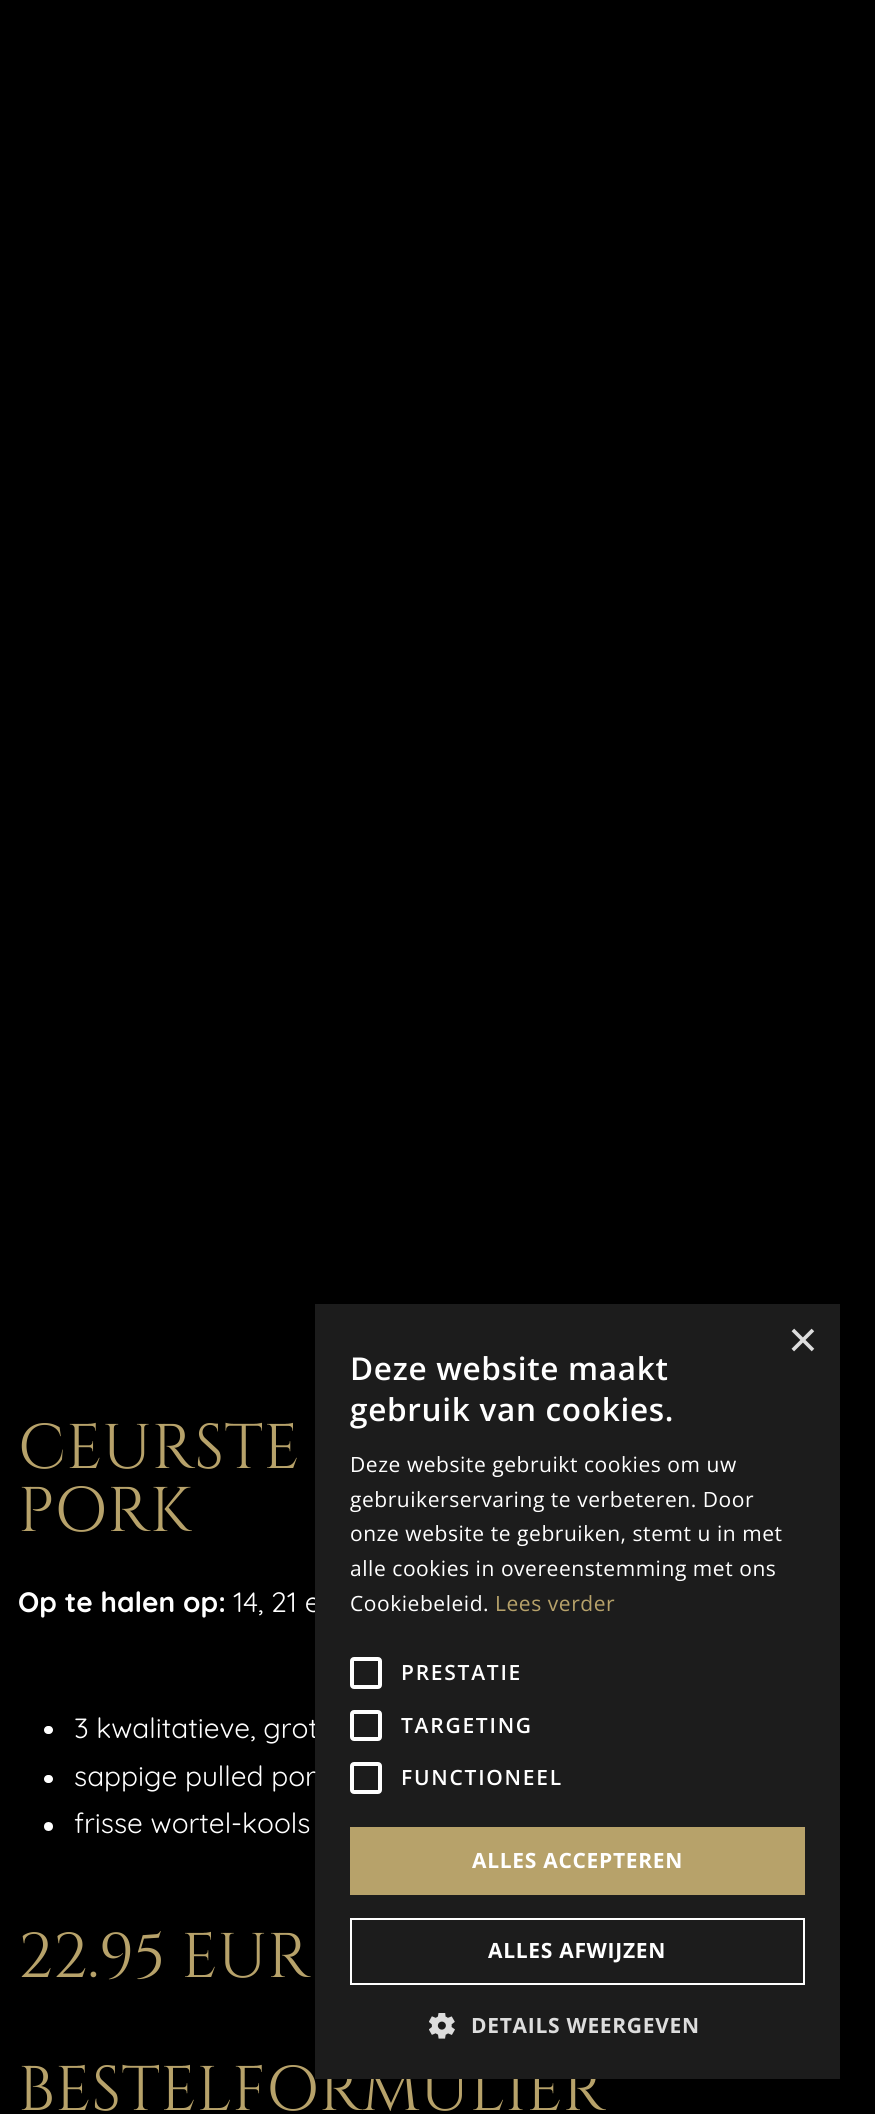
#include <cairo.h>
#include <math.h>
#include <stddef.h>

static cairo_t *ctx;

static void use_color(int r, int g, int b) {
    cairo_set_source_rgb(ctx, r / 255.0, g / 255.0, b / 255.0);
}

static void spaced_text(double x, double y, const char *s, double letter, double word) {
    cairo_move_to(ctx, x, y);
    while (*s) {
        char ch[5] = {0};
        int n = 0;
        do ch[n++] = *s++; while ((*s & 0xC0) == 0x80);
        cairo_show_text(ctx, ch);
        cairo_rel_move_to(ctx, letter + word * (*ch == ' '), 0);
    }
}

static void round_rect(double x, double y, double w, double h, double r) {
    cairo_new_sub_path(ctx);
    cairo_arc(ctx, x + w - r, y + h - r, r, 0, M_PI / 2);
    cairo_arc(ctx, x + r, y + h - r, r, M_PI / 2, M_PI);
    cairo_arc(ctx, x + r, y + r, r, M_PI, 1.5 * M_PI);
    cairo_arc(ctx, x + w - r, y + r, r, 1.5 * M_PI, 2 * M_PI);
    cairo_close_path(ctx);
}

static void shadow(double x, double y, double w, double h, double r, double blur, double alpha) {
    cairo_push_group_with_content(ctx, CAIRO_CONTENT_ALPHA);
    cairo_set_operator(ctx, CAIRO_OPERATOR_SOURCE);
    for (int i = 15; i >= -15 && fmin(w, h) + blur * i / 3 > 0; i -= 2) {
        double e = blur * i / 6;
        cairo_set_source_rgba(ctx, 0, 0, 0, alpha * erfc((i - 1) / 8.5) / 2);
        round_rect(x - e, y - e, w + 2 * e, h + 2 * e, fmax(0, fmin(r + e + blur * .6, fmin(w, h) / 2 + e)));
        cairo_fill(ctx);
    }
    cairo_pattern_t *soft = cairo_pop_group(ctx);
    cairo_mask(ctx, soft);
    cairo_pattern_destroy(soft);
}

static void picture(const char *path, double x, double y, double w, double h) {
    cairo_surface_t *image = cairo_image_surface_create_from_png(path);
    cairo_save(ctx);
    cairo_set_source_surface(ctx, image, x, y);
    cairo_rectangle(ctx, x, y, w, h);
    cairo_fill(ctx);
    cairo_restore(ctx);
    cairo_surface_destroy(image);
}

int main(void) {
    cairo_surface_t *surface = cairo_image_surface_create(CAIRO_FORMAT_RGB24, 875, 2114);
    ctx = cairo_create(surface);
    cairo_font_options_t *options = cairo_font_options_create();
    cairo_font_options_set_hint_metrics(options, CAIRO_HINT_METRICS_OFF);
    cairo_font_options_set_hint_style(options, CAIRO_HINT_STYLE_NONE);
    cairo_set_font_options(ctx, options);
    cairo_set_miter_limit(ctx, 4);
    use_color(0, 0, 0);
    cairo_paint(ctx);
    shadow(317, 1307, 525, 776, 0, 7, 0.35);
    cairo_select_font_face(ctx, "Quicksand", CAIRO_FONT_SLANT_NORMAL, CAIRO_FONT_WEIGHT_NORMAL);
    cairo_set_font_size(ctx, 28);
    use_color(255, 255, 255);
    cairo_move_to(ctx, 233, 1612);
    cairo_show_text(ctx, "14, 21 e");
    cairo_move_to(ctx, 74, 1738);
    cairo_show_text(ctx, "3 kwalitatieve, grot");
    cairo_select_font_face(ctx, "Cinzel", CAIRO_FONT_SLANT_NORMAL, CAIRO_FONT_WEIGHT_NORMAL);
    cairo_set_font_size(ctx, 63);
    use_color(183, 162, 106);
    cairo_move_to(ctx, 18, 2110);
    cairo_show_text(ctx, "BESTELFORMULIER");
    use_color(28, 28, 28);
    cairo_rectangle(ctx, 315, 1304, 525, 775);
    cairo_fill(ctx);
    cairo_select_font_face(ctx, "Liberation Sans", CAIRO_FONT_SLANT_NORMAL, CAIRO_FONT_WEIGHT_NORMAL);
    cairo_set_font_size(ctx, 51);
    use_color(221, 221, 221);
    cairo_move_to(ctx, 788, 1357);
    cairo_show_text(ctx, "×");
    cairo_select_font_face(ctx, "Open Sans SemiBold", CAIRO_FONT_SLANT_NORMAL, CAIRO_FONT_WEIGHT_NORMAL);
    cairo_set_font_size(ctx, 31.5);
    use_color(255, 255, 255);
    spaced_text(350, 1380, "Deze website maakt", 0.7, 0);
    spaced_text(350, 1421, "gebruik van cookies.", 0.7, 0);
    cairo_select_font_face(ctx, "Open Sans", CAIRO_FONT_SLANT_NORMAL, CAIRO_FONT_WEIGHT_NORMAL);
    cairo_set_font_size(ctx, 21);
    spaced_text(350, 1472, "Deze website gebruikt cookies om uw", 0.55, 0);
    spaced_text(350, 1507, "gebruikerservaring te verbeteren. Door", 0.55, 0);
    spaced_text(350, 1541, "onze website te gebruiken, stemt u in met", 0.55, 0);
    spaced_text(350, 1576, "alle cookies in overeenstemming met ons", 0.55, 0);
    spaced_text(350, 1611, "Cookiebeleid.", 0.55, 0);
    use_color(183, 162, 106);
    spaced_text(495, 1611, "Lees verder", 0.55, 0);
    round_rect(352, 1659, 28, 28, 2);
    use_color(255, 255, 255);
    cairo_set_line_width(ctx, 4);
    cairo_stroke(ctx);
    cairo_select_font_face(ctx, "Open Sans SemiBold", CAIRO_FONT_SLANT_NORMAL, CAIRO_FONT_WEIGHT_NORMAL);
    spaced_text(401, 1680, "PRESTATIE", 1.75, 0);
    round_rect(352, 1712, 28, 27, 2);
    cairo_stroke(ctx);
    spaced_text(401, 1733, "TARGETING", 1.75, 0);
    round_rect(352, 1764, 28, 28, 2);
    cairo_stroke(ctx);
    spaced_text(401, 1785, "FUNCTIONEEL", 1.75, 0);
    use_color(183, 162, 106);
    cairo_rectangle(ctx, 350, 1827, 455, 68);
    cairo_fill(ctx);
    cairo_select_font_face(ctx, "Open Sans", CAIRO_FONT_SLANT_NORMAL, CAIRO_FONT_WEIGHT_BOLD);
    use_color(255, 255, 255);
    spaced_text(472, 1868, "ALLES ACCEPTEREN", 0.7, 0);
    cairo_rectangle(ctx, 351, 1919, 453, 65);
    cairo_set_line_width(ctx, 2);
    cairo_stroke(ctx);
    spaced_text(488, 1958, "ALLES AFWIJZEN", 0.7, 0);
    picture("img1.png", 429, 2013, 26, 26);
    use_color(221, 221, 221);
    spaced_text(471, 2033, "DETAILS WEERGEVEN", 0.7, 0);
    cairo_select_font_face(ctx, "Cinzel", CAIRO_FONT_SLANT_NORMAL, CAIRO_FONT_WEIGHT_NORMAL);
    cairo_set_font_size(ctx, 63);
    use_color(183, 162, 106);
    cairo_move_to(ctx, 18, 1468);
    cairo_show_text(ctx, "CEURSTE");
    cairo_move_to(ctx, 18, 1531);
    cairo_show_text(ctx, "PORK");
    cairo_select_font_face(ctx, "Quicksand", CAIRO_FONT_SLANT_NORMAL, CAIRO_FONT_WEIGHT_BOLD);
    cairo_set_font_size(ctx, 28);
    use_color(255, 255, 255);
    cairo_move_to(ctx, 18, 1612);
    cairo_show_text(ctx, "Op te halen op:");
    round_rect(44, 1726, 9, 8, 4);
    cairo_fill(ctx);
    round_rect(44, 1775, 9, 8, 4);
    cairo_fill(ctx);
    cairo_select_font_face(ctx, "Quicksand", CAIRO_FONT_SLANT_NORMAL, CAIRO_FONT_WEIGHT_NORMAL);
    cairo_move_to(ctx, 74, 1786);
    cairo_show_text(ctx, "sappige pulled por");
    cairo_new_path(ctx);
    cairo_arc(ctx, 48.5, 1826.5, 4.5, 0, 2 * M_PI);
    cairo_fill(ctx);
    cairo_move_to(ctx, 74, 1833);
    cairo_show_text(ctx, "frisse wortel-kools");
    cairo_select_font_face(ctx, "Cinzel", CAIRO_FONT_SLANT_NORMAL, CAIRO_FONT_WEIGHT_NORMAL);
    cairo_set_font_size(ctx, 63);
    use_color(183, 162, 106);
    cairo_move_to(ctx, 18, 1977);
    cairo_show_text(ctx, "22.95 EUR");
    cairo_surface_write_to_png(surface, "result.png");
    cairo_font_options_destroy(options);
    cairo_destroy(ctx);
    cairo_surface_destroy(surface);
    return 0;
}
